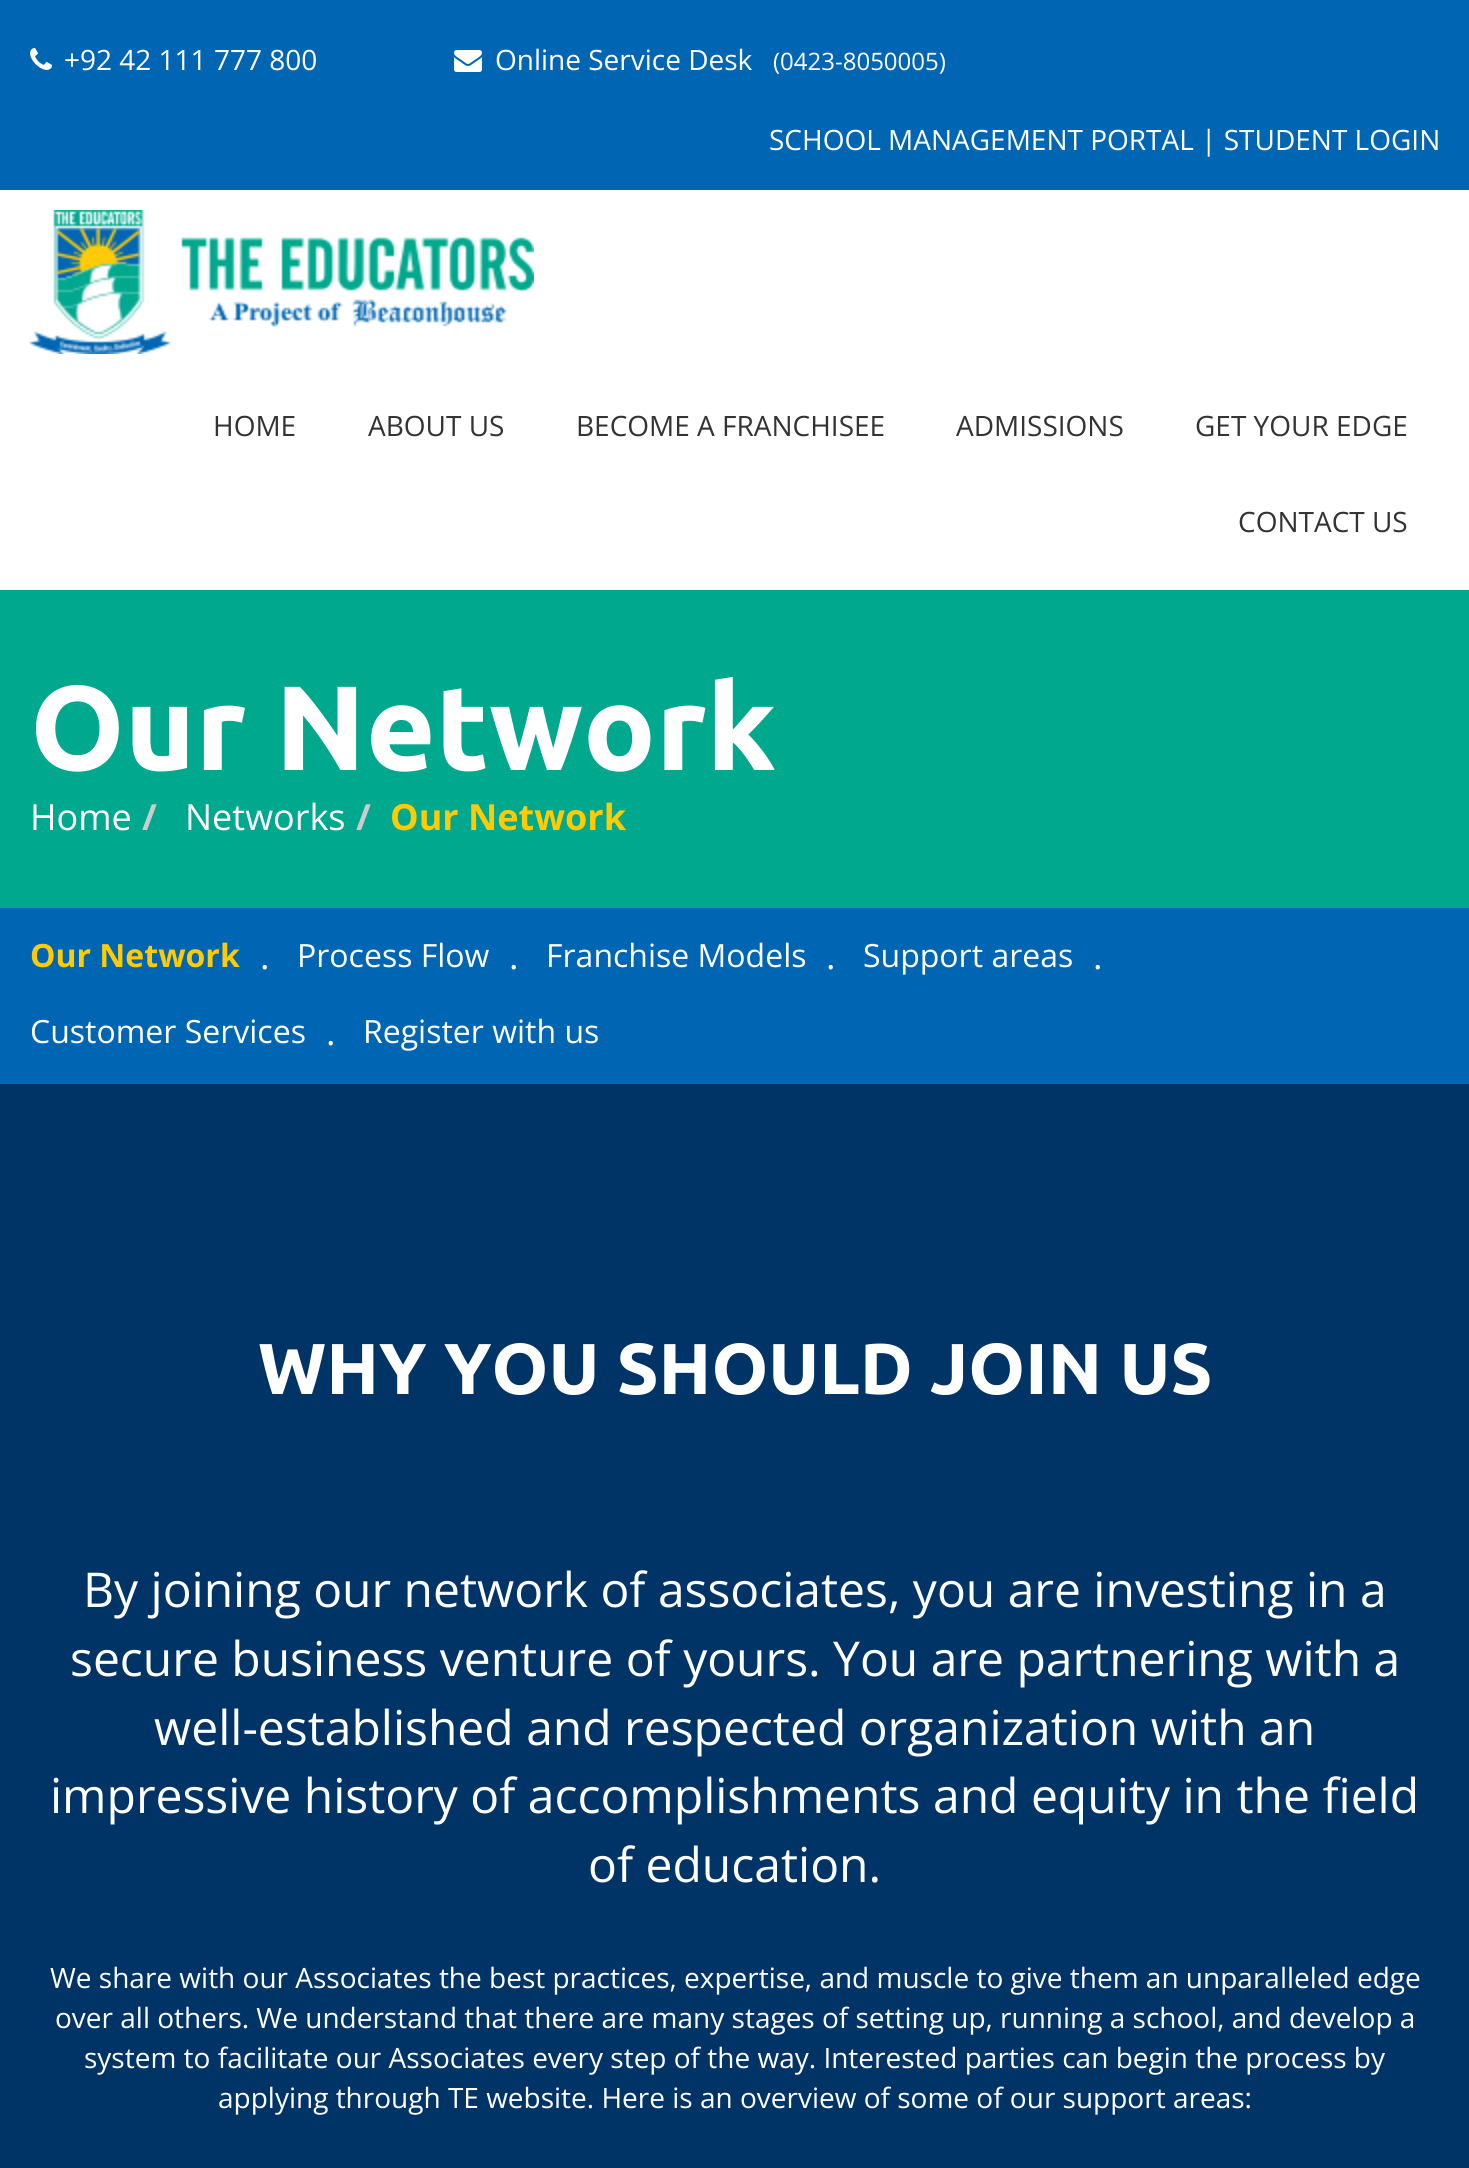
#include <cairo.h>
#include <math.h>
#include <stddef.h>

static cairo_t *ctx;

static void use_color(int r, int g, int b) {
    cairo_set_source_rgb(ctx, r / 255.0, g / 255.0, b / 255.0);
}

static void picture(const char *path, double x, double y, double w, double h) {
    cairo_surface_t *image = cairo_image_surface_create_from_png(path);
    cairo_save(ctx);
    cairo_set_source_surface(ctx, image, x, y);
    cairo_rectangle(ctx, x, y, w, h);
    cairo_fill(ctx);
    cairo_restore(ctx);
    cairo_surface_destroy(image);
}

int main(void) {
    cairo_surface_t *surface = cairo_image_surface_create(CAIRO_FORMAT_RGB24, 1469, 2168);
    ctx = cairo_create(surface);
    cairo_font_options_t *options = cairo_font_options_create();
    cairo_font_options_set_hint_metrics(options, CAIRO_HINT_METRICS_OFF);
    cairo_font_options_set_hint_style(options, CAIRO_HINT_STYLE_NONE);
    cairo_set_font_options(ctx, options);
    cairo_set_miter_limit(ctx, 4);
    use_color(255, 255, 255);
    cairo_paint(ctx);
    use_color(0, 102, 179);
    cairo_rectangle(ctx, 0, 0, 1469, 190);
    cairo_fill(ctx);
    picture("img1.png", 30, 48, 22, 22);
    cairo_select_font_face(ctx, "Open Sans", CAIRO_FONT_SLANT_NORMAL, CAIRO_FONT_WEIGHT_NORMAL);
    cairo_set_font_size(ctx, 28);
    use_color(255, 255, 255);
    cairo_move_to(ctx, 64, 70);
    cairo_show_text(ctx, "+92 42 111 777 800");
    picture("img2.png", 454, 50, 28, 22);
    cairo_move_to(ctx, 495, 70);
    cairo_show_text(ctx, "Online Service Desk");
    cairo_set_font_size(ctx, 24);
    cairo_move_to(ctx, 773, 70);
    cairo_show_text(ctx, "(0423-8050005)");
    cairo_set_font_size(ctx, 28);
    cairo_move_to(ctx, 769, 150);
    cairo_show_text(ctx, "SCHOOL MANAGEMENT PORTAL | STUDENT LOGIN");
    picture("img3.png", 30, 210, 504, 144);
    use_color(51, 51, 51);
    cairo_move_to(ctx, 213, 436);
    cairo_show_text(ctx, "HOME");
    cairo_move_to(ctx, 368, 436);
    cairo_show_text(ctx, "ABOUT US");
    cairo_move_to(ctx, 576, 436);
    cairo_show_text(ctx, "BECOME A FRANCHISEE");
    cairo_move_to(ctx, 956, 436);
    cairo_show_text(ctx, "ADMISSIONS");
    cairo_move_to(ctx, 1195, 436);
    cairo_show_text(ctx, "GET YOUR EDGE");
    cairo_move_to(ctx, 1238, 532);
    cairo_show_text(ctx, "CONTACT US");
    use_color(0, 168, 142);
    cairo_rectangle(ctx, 0, 590, 1469, 318);
    cairo_fill(ctx);
    cairo_select_font_face(ctx, "Ubuntu", CAIRO_FONT_SLANT_NORMAL, CAIRO_FONT_WEIGHT_BOLD);
    cairo_set_font_size(ctx, 120);
    use_color(255, 255, 255);
    cairo_move_to(ctx, 30, 770);
    cairo_show_text(ctx, "Our Network");
    cairo_select_font_face(ctx, "Open Sans", CAIRO_FONT_SLANT_NORMAL, CAIRO_FONT_WEIGHT_NORMAL);
    cairo_set_font_size(ctx, 36);
    cairo_move_to(ctx, 30, 830);
    cairo_show_text(ctx, "Home");
    cairo_select_font_face(ctx, "Open Sans", CAIRO_FONT_SLANT_NORMAL, CAIRO_FONT_WEIGHT_BOLD);
    use_color(204, 204, 204);
    cairo_move_to(ctx, 142, 830);
    cairo_show_text(ctx, "/");
    cairo_select_font_face(ctx, "Open Sans", CAIRO_FONT_SLANT_NORMAL, CAIRO_FONT_WEIGHT_NORMAL);
    use_color(255, 255, 255);
    cairo_move_to(ctx, 185, 830);
    cairo_show_text(ctx, "Networks");
    cairo_select_font_face(ctx, "Open Sans", CAIRO_FONT_SLANT_NORMAL, CAIRO_FONT_WEIGHT_BOLD);
    use_color(204, 204, 204);
    cairo_move_to(ctx, 356, 830);
    cairo_show_text(ctx, "/");
    use_color(255, 203, 5);
    cairo_move_to(ctx, 390, 830);
    cairo_show_text(ctx, "Our Network");
    use_color(0, 102, 179);
    cairo_rectangle(ctx, 0, 908, 1469, 176);
    cairo_fill(ctx);
    cairo_set_font_size(ctx, 32);
    use_color(255, 203, 5);
    cairo_move_to(ctx, 30, 967);
    cairo_show_text(ctx, "Our Network");
    cairo_select_font_face(ctx, "Open Sans", CAIRO_FONT_SLANT_NORMAL, CAIRO_FONT_WEIGHT_NORMAL);
    cairo_set_font_size(ctx, 36);
    use_color(255, 255, 255);
    cairo_move_to(ctx, 260, 969);
    cairo_show_text(ctx, ".");
    cairo_set_font_size(ctx, 32);
    cairo_move_to(ctx, 297, 967);
    cairo_show_text(ctx, "Process Flow");
    cairo_set_font_size(ctx, 36);
    cairo_move_to(ctx, 509, 969);
    cairo_show_text(ctx, ".");
    cairo_set_font_size(ctx, 32);
    cairo_move_to(ctx, 546, 967);
    cairo_show_text(ctx, "Franchise Models");
    cairo_set_font_size(ctx, 36);
    cairo_move_to(ctx, 826, 969);
    cairo_show_text(ctx, ".");
    cairo_set_font_size(ctx, 32);
    cairo_move_to(ctx, 863, 967);
    cairo_show_text(ctx, "Support areas");
    cairo_set_font_size(ctx, 36);
    cairo_move_to(ctx, 1093, 969);
    cairo_show_text(ctx, ".");
    cairo_set_font_size(ctx, 32);
    cairo_move_to(ctx, 30, 1043);
    cairo_show_text(ctx, "Customer Services");
    cairo_set_font_size(ctx, 36);
    cairo_move_to(ctx, 326, 1045);
    cairo_show_text(ctx, ".");
    cairo_set_font_size(ctx, 32);
    cairo_move_to(ctx, 363, 1043);
    cairo_show_text(ctx, "Register with us");
    use_color(0, 51, 102);
    cairo_rectangle(ctx, 0, 1084, 1469, 1084);
    cairo_fill(ctx);
    cairo_select_font_face(ctx, "Ubuntu", CAIRO_FONT_SLANT_NORMAL, CAIRO_FONT_WEIGHT_BOLD);
    cairo_set_font_size(ctx, 72);
    use_color(255, 255, 255);
    cairo_move_to(ctx, 258, 1394);
    cairo_show_text(ctx, "WHY YOU SHOULD JOIN US");
    cairo_select_font_face(ctx, "Open Sans", CAIRO_FONT_SLANT_NORMAL, CAIRO_FONT_WEIGHT_NORMAL);
    cairo_set_font_size(ctx, 48);
    cairo_move_to(ctx, 83, 1607);
    cairo_show_text(ctx, "By joining our network of associates, you are investing in a");
    cairo_move_to(ctx, 70, 1676);
    cairo_show_text(ctx, "secure business venture of yours. You are partnering with a");
    cairo_move_to(ctx, 154, 1745);
    cairo_show_text(ctx, "well-established and respected organization with an");
    cairo_move_to(ctx, 50, 1813);
    cairo_show_text(ctx, "impressive history of accomplishments and equity in the field");
    cairo_move_to(ctx, 588, 1882);
    cairo_show_text(ctx, "of education.");
    cairo_set_font_size(ctx, 28);
    cairo_move_to(ctx, 50, 1988);
    cairo_show_text(ctx, "We share with our Associates the best practices, expertise, and muscle to give them an unparalleled edge");
    cairo_move_to(ctx, 55, 2028);
    cairo_show_text(ctx, "over all others. We understand that there are many stages of setting up, running a school, and develop a");
    cairo_move_to(ctx, 84, 2068);
    cairo_show_text(ctx, "system to facilitate our Associates every step of the way. Interested parties can begin the process by");
    cairo_move_to(ctx, 218, 2108);
    cairo_show_text(ctx, "applying through TE website. Here is an overview of some of our support areas:");
    cairo_surface_write_to_png(surface, "result.png");
    cairo_font_options_destroy(options);
    cairo_destroy(ctx);
    cairo_surface_destroy(surface);
    return 0;
}
